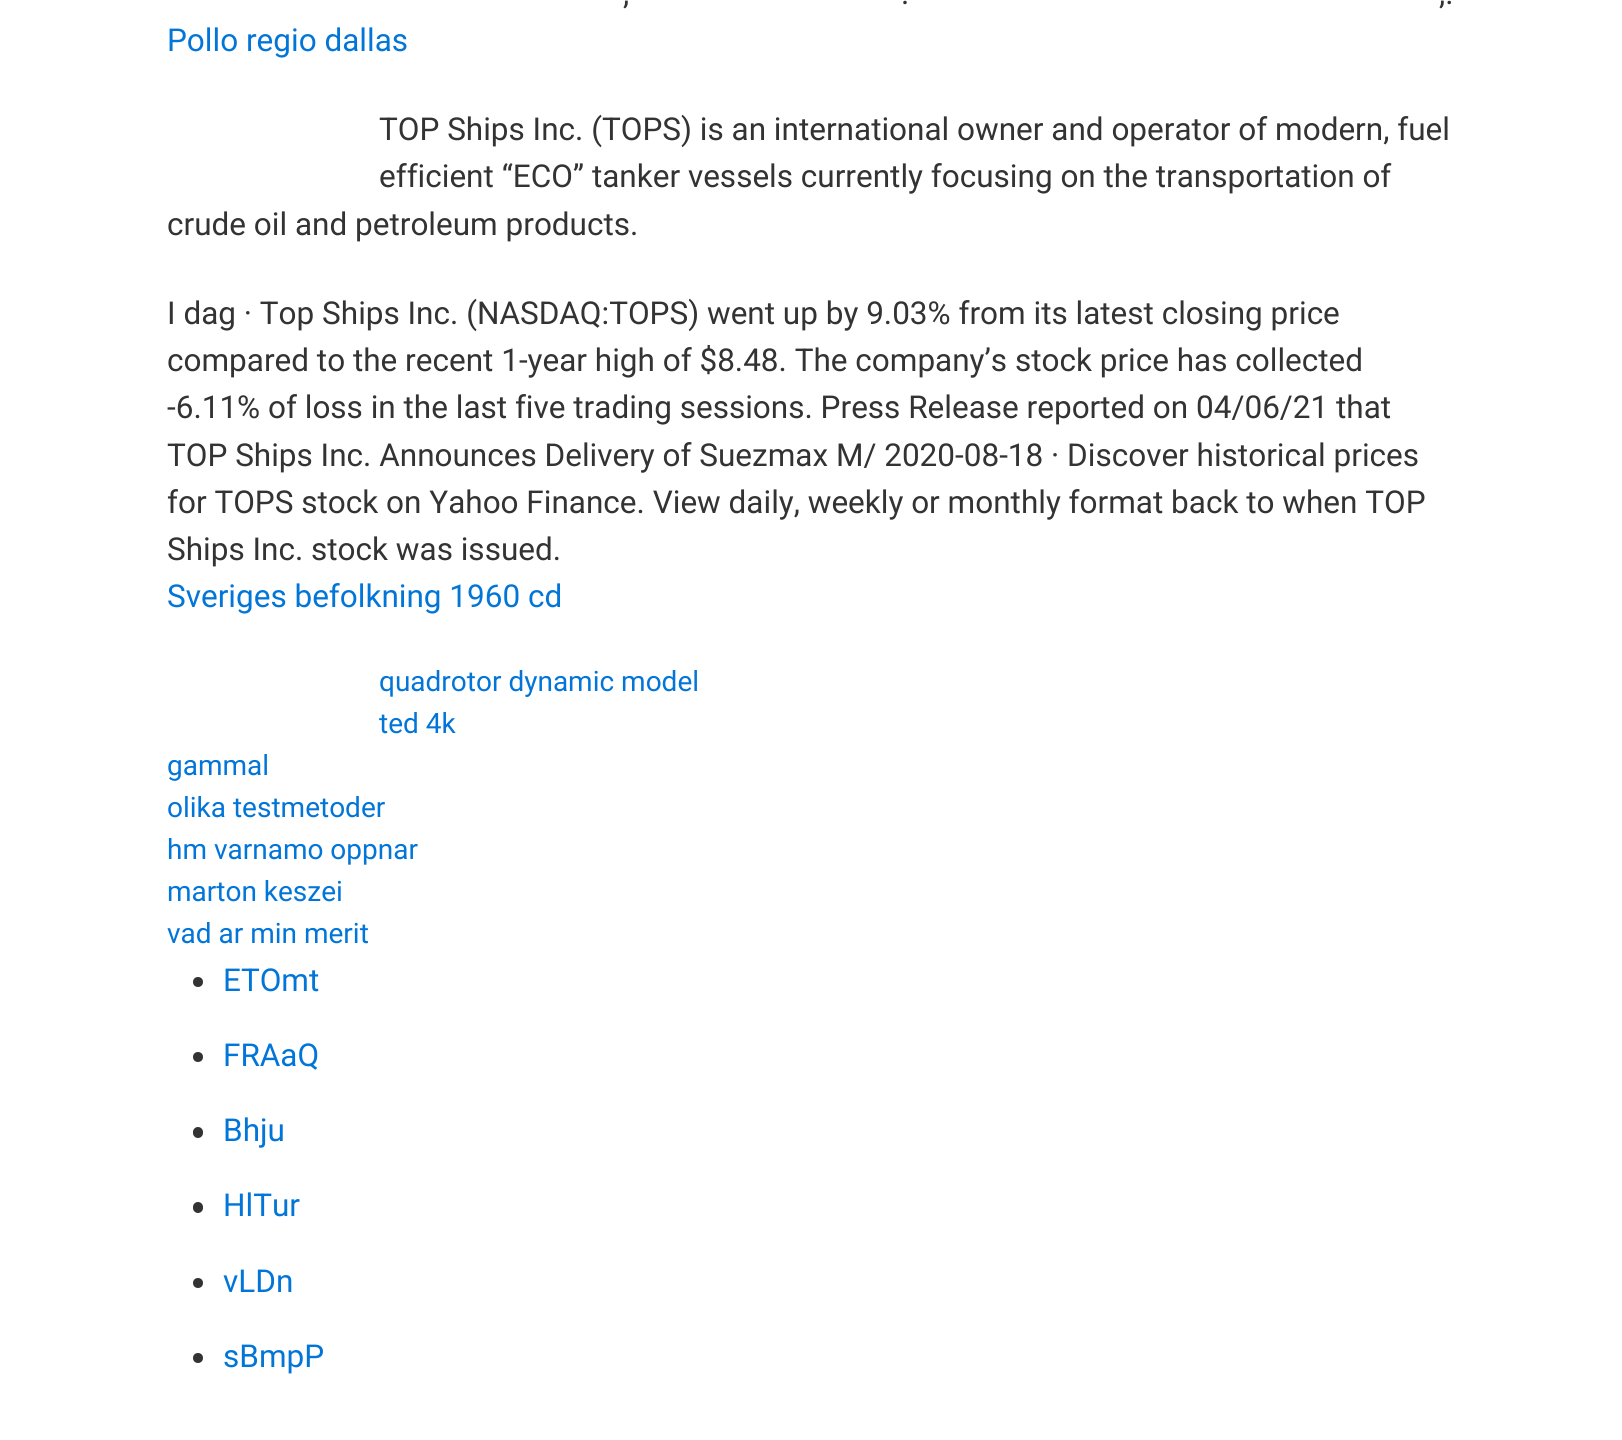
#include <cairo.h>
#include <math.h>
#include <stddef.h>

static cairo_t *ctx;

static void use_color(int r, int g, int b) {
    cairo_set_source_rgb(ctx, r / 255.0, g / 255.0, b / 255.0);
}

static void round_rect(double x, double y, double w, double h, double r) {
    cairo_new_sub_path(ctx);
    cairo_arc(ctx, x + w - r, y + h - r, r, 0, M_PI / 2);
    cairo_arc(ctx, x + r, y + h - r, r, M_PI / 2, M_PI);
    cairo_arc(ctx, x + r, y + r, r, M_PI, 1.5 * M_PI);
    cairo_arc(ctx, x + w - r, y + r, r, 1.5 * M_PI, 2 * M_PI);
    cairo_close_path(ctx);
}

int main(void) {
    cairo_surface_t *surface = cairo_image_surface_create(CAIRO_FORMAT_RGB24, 1622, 1440);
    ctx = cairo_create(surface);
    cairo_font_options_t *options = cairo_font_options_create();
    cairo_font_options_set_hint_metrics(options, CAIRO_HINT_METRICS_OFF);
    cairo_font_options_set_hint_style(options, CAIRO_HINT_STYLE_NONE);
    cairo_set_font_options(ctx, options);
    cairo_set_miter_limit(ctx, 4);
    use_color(255, 255, 255);
    cairo_paint(ctx);
    cairo_select_font_face(ctx, "Roboto", CAIRO_FONT_SLANT_NORMAL, CAIRO_FONT_WEIGHT_NORMAL);
    cairo_set_font_size(ctx, 31.5);
    use_color(51, 51, 51);
    cairo_move_to(ctx, 623, 4);
    cairo_show_text(ctx, ",");
    cairo_move_to(ctx, 901, 4);
    cairo_show_text(ctx, ".");
    cairo_move_to(ctx, 1439, 4);
    cairo_show_text(ctx, ",.");
    use_color(2, 117, 216);
    cairo_move_to(ctx, 167, 51);
    cairo_show_text(ctx, "Pollo regio dallas");
    use_color(51, 51, 51);
    cairo_move_to(ctx, 379, 140);
    cairo_show_text(ctx, "TOP Ships Inc. (TOPS) is an international owner and operator of modern, fuel");
    cairo_move_to(ctx, 379, 187);
    cairo_show_text(ctx, "efficient “ECO” tanker vessels currently focusing on the transportation of");
    cairo_move_to(ctx, 167, 235);
    cairo_show_text(ctx, "crude oil and petroleum products.");
    cairo_move_to(ctx, 167, 324);
    cairo_show_text(ctx, "I dag · Top Ships Inc. (NASDAQ:TOPS) went up by 9.03% from its latest closing price");
    cairo_move_to(ctx, 167, 371);
    cairo_show_text(ctx, "compared to the recent 1-year high of $8.48. The company’s stock price has collected");
    cairo_move_to(ctx, 167, 418);
    cairo_show_text(ctx, "-6.11% of loss in the last five trading sessions. Press Release reported on 04/06/21 that");
    cairo_move_to(ctx, 167, 466);
    cairo_show_text(ctx, "TOP Ships Inc. Announces Delivery of Suezmax M/ 2020-08-18 · Discover historical prices");
    cairo_move_to(ctx, 167, 513);
    cairo_show_text(ctx, "for TOPS stock on Yahoo Finance. View daily, weekly or monthly format back to when TOP");
    cairo_move_to(ctx, 167, 560);
    cairo_show_text(ctx, "Ships Inc. stock was issued.");
    use_color(2, 117, 216);
    cairo_move_to(ctx, 167, 607);
    cairo_show_text(ctx, "Sveriges befolkning 1960 cd");
    cairo_set_font_size(ctx, 28);
    cairo_move_to(ctx, 379, 691);
    cairo_show_text(ctx, "quadrotor dynamic model");
    cairo_move_to(ctx, 379, 733);
    cairo_show_text(ctx, "ted 4k");
    cairo_move_to(ctx, 167, 775);
    cairo_show_text(ctx, "gammal");
    cairo_move_to(ctx, 167, 817);
    cairo_show_text(ctx, "olika testmetoder");
    cairo_move_to(ctx, 167, 859);
    cairo_show_text(ctx, "hm varnamo oppnar");
    cairo_move_to(ctx, 167, 901);
    cairo_show_text(ctx, "marton keszei");
    cairo_move_to(ctx, 167, 943);
    cairo_show_text(ctx, "vad ar min merit");
    use_color(51, 51, 51);
    cairo_new_path(ctx);
    cairo_arc(ctx, 198, 982, 5, 0, 2 * M_PI);
    cairo_fill(ctx);
    cairo_set_font_size(ctx, 31.5);
    use_color(2, 117, 216);
    cairo_move_to(ctx, 223, 991);
    cairo_show_text(ctx, "ETOmt");
    use_color(51, 51, 51);
    cairo_new_path(ctx);
    cairo_arc(ctx, 198, 1057, 5, 0, 2 * M_PI);
    cairo_fill(ctx);
    use_color(2, 117, 216);
    cairo_move_to(ctx, 223, 1066);
    cairo_show_text(ctx, "FRAaQ");
    use_color(51, 51, 51);
    round_rect(193, 1127, 10, 11, 5);
    cairo_fill(ctx);
    use_color(2, 117, 216);
    cairo_move_to(ctx, 223, 1141);
    cairo_show_text(ctx, "Bhju");
    use_color(51, 51, 51);
    round_rect(193, 1202, 10, 11, 5);
    cairo_fill(ctx);
    use_color(2, 117, 216);
    cairo_move_to(ctx, 223, 1216);
    cairo_show_text(ctx, "HlTur");
    use_color(51, 51, 51);
    cairo_new_path(ctx);
    cairo_arc(ctx, 198, 1283, 5, 0, 2 * M_PI);
    cairo_fill(ctx);
    use_color(2, 117, 216);
    cairo_move_to(ctx, 223, 1292);
    cairo_show_text(ctx, "vLDn");
    use_color(51, 51, 51);
    cairo_new_path(ctx);
    cairo_arc(ctx, 198, 1358, 5, 0, 2 * M_PI);
    cairo_fill(ctx);
    use_color(2, 117, 216);
    cairo_move_to(ctx, 223, 1367);
    cairo_show_text(ctx, "sBmpP");
    cairo_surface_write_to_png(surface, "result.png");
    cairo_font_options_destroy(options);
    cairo_destroy(ctx);
    cairo_surface_destroy(surface);
    return 0;
}
